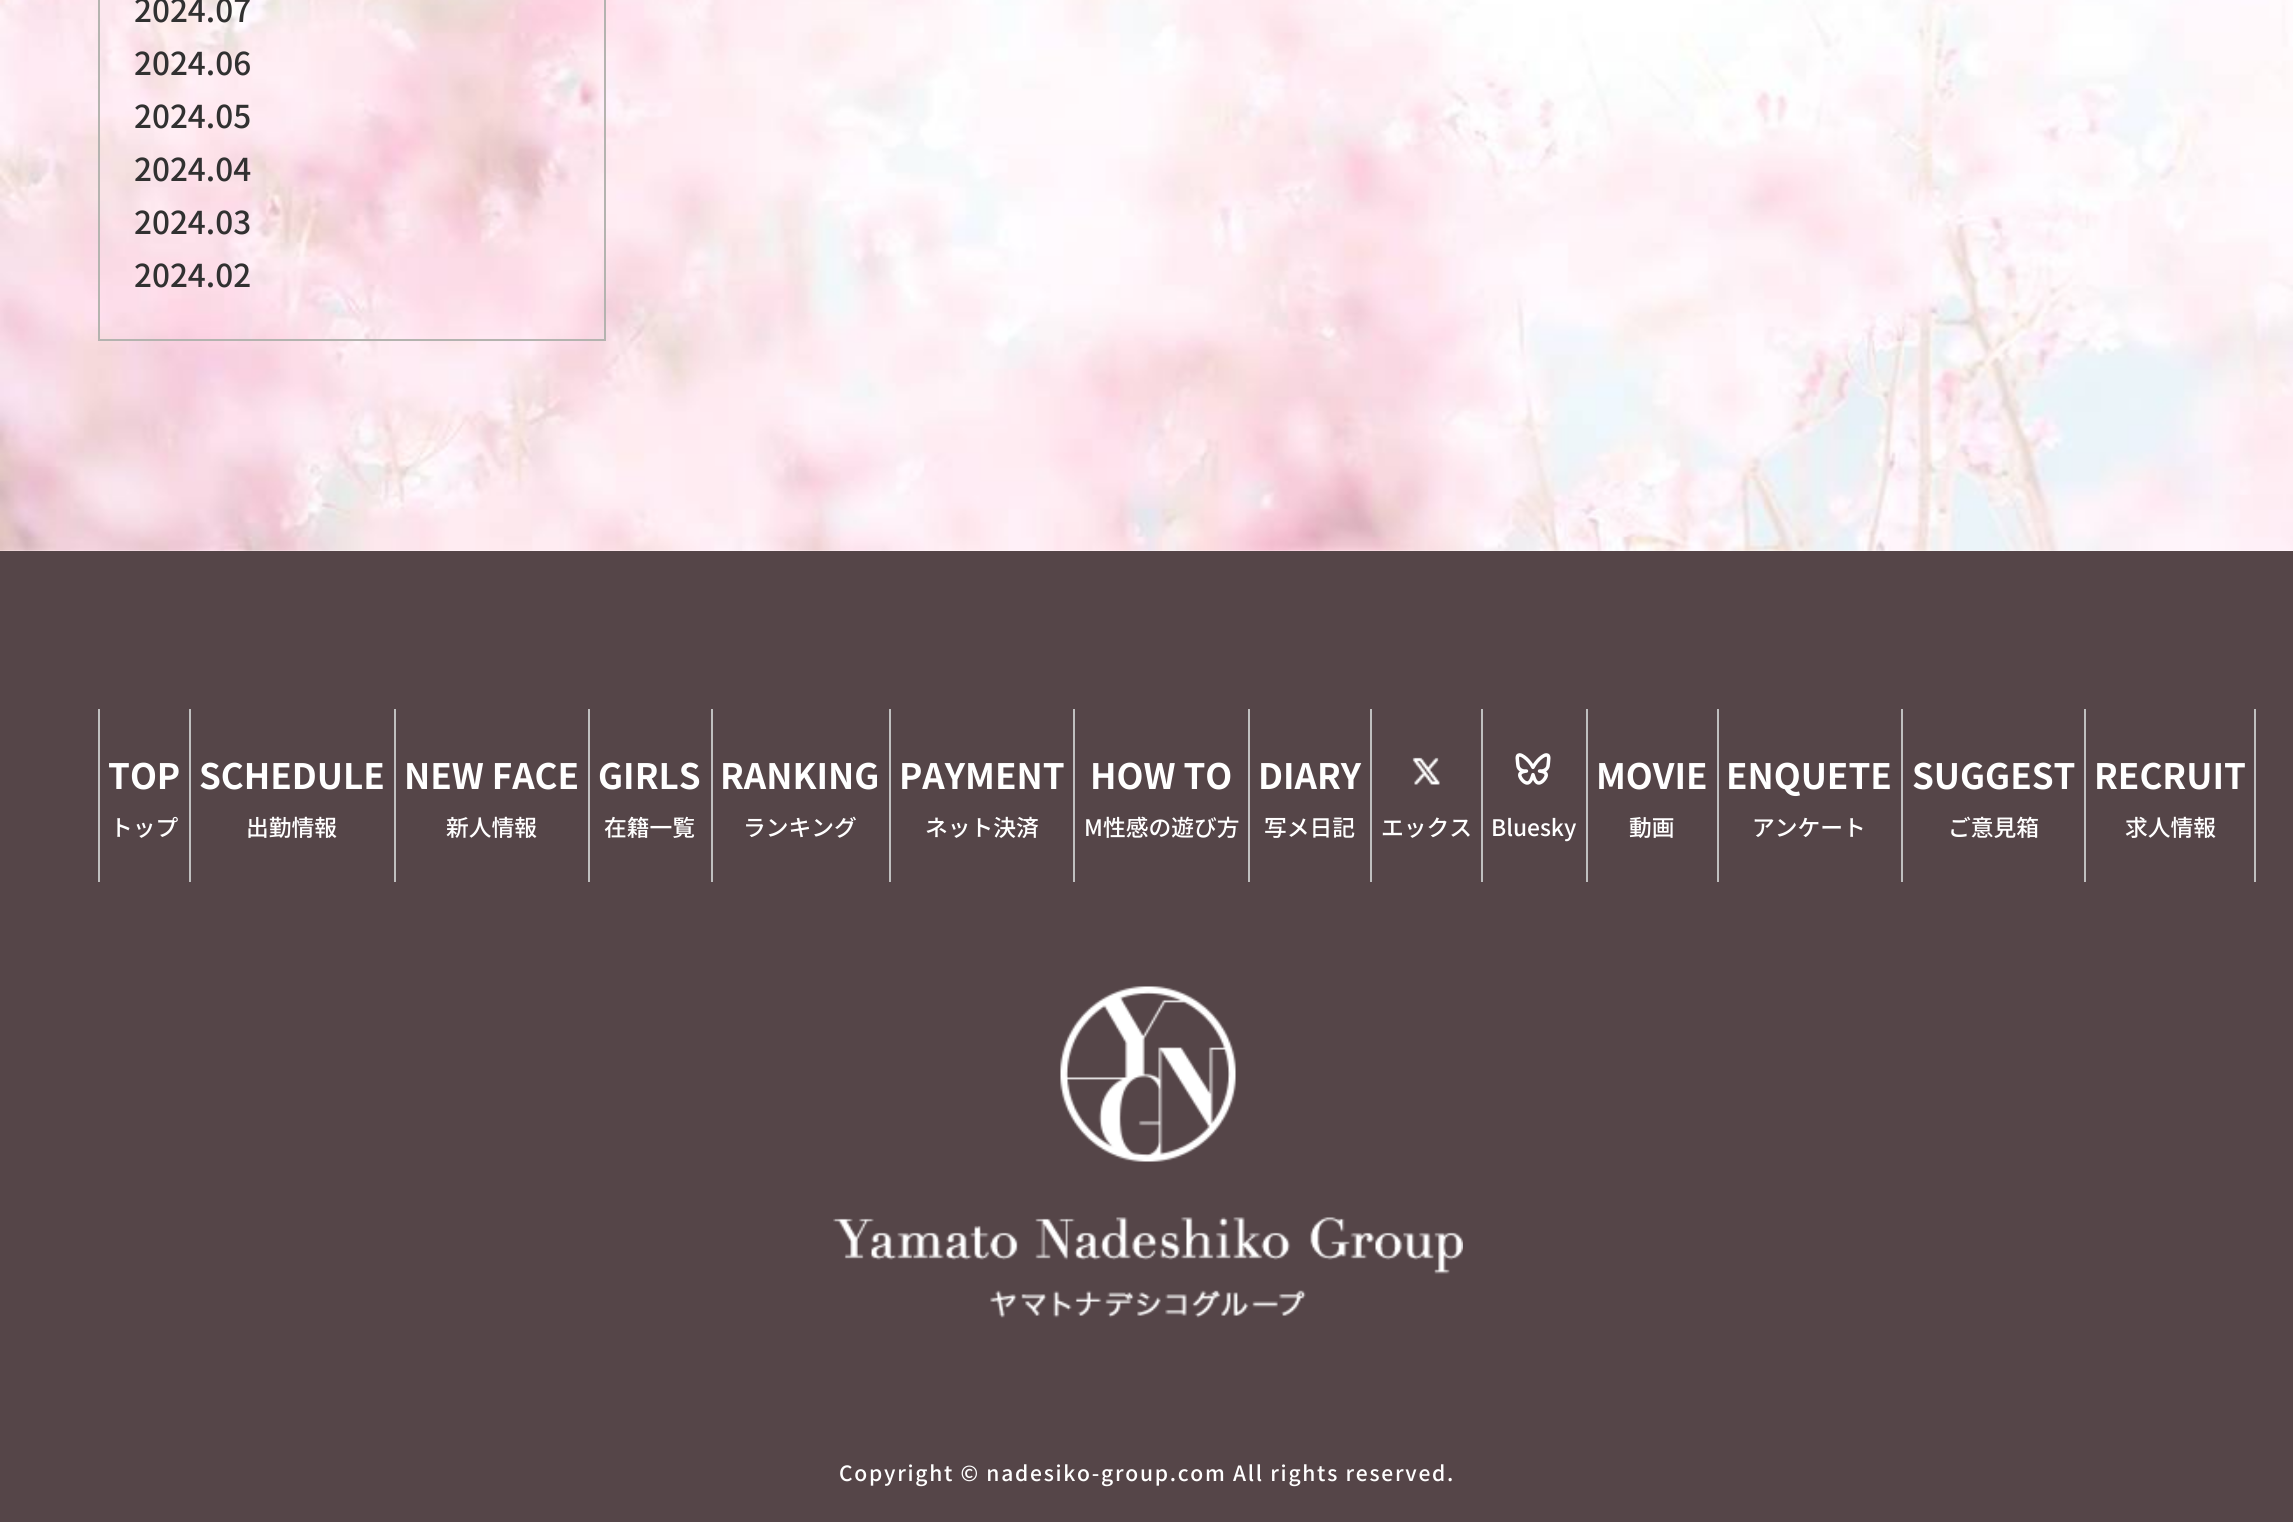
#include <cairo.h>
#include <math.h>
#include <stddef.h>

static cairo_t *ctx;

static void use_color(int r, int g, int b) {
    cairo_set_source_rgb(ctx, r / 255.0, g / 255.0, b / 255.0);
}

static void spaced_text(double x, double y, const char *s, double letter, double word) {
    cairo_move_to(ctx, x, y);
    while (*s) {
        char ch[5] = {0};
        int n = 0;
        do ch[n++] = *s++; while ((*s & 0xC0) == 0x80);
        cairo_show_text(ctx, ch);
        cairo_rel_move_to(ctx, letter + word * (*ch == ' '), 0);
    }
}

static void picture(const char *path, double x, double y, double w, double h) {
    cairo_surface_t *image = cairo_image_surface_create_from_png(path);
    cairo_save(ctx);
    cairo_set_source_surface(ctx, image, x, y);
    cairo_rectangle(ctx, x, y, w, h);
    cairo_fill(ctx);
    cairo_restore(ctx);
    cairo_surface_destroy(image);
}

int main(void) {
    cairo_surface_t *surface = cairo_image_surface_create(CAIRO_FORMAT_RGB24, 2293, 1522);
    ctx = cairo_create(surface);
    cairo_font_options_t *options = cairo_font_options_create();
    cairo_font_options_set_hint_metrics(options, CAIRO_HINT_METRICS_OFF);
    cairo_font_options_set_hint_style(options, CAIRO_HINT_STYLE_NONE);
    cairo_set_font_options(ctx, options);
    cairo_set_miter_limit(ctx, 4);
    use_color(255, 255, 255);
    cairo_paint(ctx);
    picture("img1.png", 0, 0, 2293, 551);
    cairo_rectangle(ctx, 99, -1, 506, 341);
    use_color(180, 179, 175);
    cairo_stroke(ctx);
    cairo_select_font_face(ctx, "Noto Sans JP Medium", CAIRO_FONT_SLANT_NORMAL, CAIRO_FONT_WEIGHT_NORMAL);
    cairo_set_font_size(ctx, 31.5);
    use_color(49, 49, 49);
    cairo_move_to(ctx, 134, 22);
    cairo_show_text(ctx, "2024.07");
    cairo_move_to(ctx, 134, 75);
    cairo_show_text(ctx, "2024.06");
    cairo_move_to(ctx, 134, 128);
    cairo_show_text(ctx, "2024.05");
    cairo_move_to(ctx, 134, 181);
    cairo_show_text(ctx, "2024.04");
    cairo_move_to(ctx, 134, 234);
    cairo_show_text(ctx, "2024.03");
    cairo_move_to(ctx, 134, 287);
    cairo_show_text(ctx, "2024.02");
    use_color(85, 69, 72);
    cairo_rectangle(ctx, 0, 551, 2293, 971);
    cairo_fill(ctx);
    use_color(191, 191, 191);
    cairo_rectangle(ctx, 98, 709, 2, 173);
    cairo_fill(ctx);
    cairo_rectangle(ctx, 189, 709, 2, 173);
    cairo_fill(ctx);
    cairo_select_font_face(ctx, "Noto Sans JP", CAIRO_FONT_SLANT_NORMAL, CAIRO_FONT_WEIGHT_BOLD);
    cairo_set_font_size(ctx, 35);
    use_color(255, 255, 255);
    cairo_move_to(ctx, 108, 789);
    cairo_show_text(ctx, "TOP");
    cairo_select_font_face(ctx, "Noto Sans JP Medium", CAIRO_FONT_SLANT_NORMAL, CAIRO_FONT_WEIGHT_NORMAL);
    cairo_set_font_size(ctx, 22.75);
    cairo_move_to(ctx, 110, 836);
    cairo_show_text(ctx, "トップ");
    use_color(191, 191, 191);
    cairo_rectangle(ctx, 394, 709, 2, 173);
    cairo_fill(ctx);
    cairo_select_font_face(ctx, "Noto Sans JP", CAIRO_FONT_SLANT_NORMAL, CAIRO_FONT_WEIGHT_BOLD);
    cairo_set_font_size(ctx, 35);
    use_color(255, 255, 255);
    cairo_move_to(ctx, 199, 789);
    cairo_show_text(ctx, "SCHEDULE");
    cairo_select_font_face(ctx, "Noto Sans JP Medium", CAIRO_FONT_SLANT_NORMAL, CAIRO_FONT_WEIGHT_NORMAL);
    cairo_set_font_size(ctx, 22.75);
    cairo_move_to(ctx, 246, 836);
    cairo_show_text(ctx, "出勤情報");
    use_color(191, 191, 191);
    cairo_rectangle(ctx, 588, 709, 2, 173);
    cairo_fill(ctx);
    cairo_select_font_face(ctx, "Noto Sans JP", CAIRO_FONT_SLANT_NORMAL, CAIRO_FONT_WEIGHT_BOLD);
    cairo_set_font_size(ctx, 35);
    use_color(255, 255, 255);
    cairo_move_to(ctx, 404, 789);
    cairo_show_text(ctx, "NEW FACE");
    cairo_select_font_face(ctx, "Noto Sans JP Medium", CAIRO_FONT_SLANT_NORMAL, CAIRO_FONT_WEIGHT_NORMAL);
    cairo_set_font_size(ctx, 22.75);
    cairo_move_to(ctx, 446, 836);
    cairo_show_text(ctx, "新人情報");
    use_color(191, 191, 191);
    cairo_rectangle(ctx, 711, 709, 2, 173);
    cairo_fill(ctx);
    cairo_select_font_face(ctx, "Noto Sans JP", CAIRO_FONT_SLANT_NORMAL, CAIRO_FONT_WEIGHT_BOLD);
    cairo_set_font_size(ctx, 35);
    use_color(255, 255, 255);
    cairo_move_to(ctx, 598, 789);
    cairo_show_text(ctx, "GIRLS");
    cairo_select_font_face(ctx, "Noto Sans JP Medium", CAIRO_FONT_SLANT_NORMAL, CAIRO_FONT_WEIGHT_NORMAL);
    cairo_set_font_size(ctx, 22.75);
    cairo_move_to(ctx, 604, 836);
    cairo_show_text(ctx, "在籍一覧");
    use_color(191, 191, 191);
    cairo_rectangle(ctx, 889, 709, 2, 173);
    cairo_fill(ctx);
    cairo_select_font_face(ctx, "Noto Sans JP", CAIRO_FONT_SLANT_NORMAL, CAIRO_FONT_WEIGHT_BOLD);
    cairo_set_font_size(ctx, 35);
    use_color(255, 255, 255);
    cairo_move_to(ctx, 720, 789);
    cairo_show_text(ctx, "RANKING");
    cairo_select_font_face(ctx, "Noto Sans JP Medium", CAIRO_FONT_SLANT_NORMAL, CAIRO_FONT_WEIGHT_NORMAL);
    cairo_set_font_size(ctx, 22.75);
    cairo_move_to(ctx, 743, 836);
    cairo_show_text(ctx, "ランキング");
    use_color(191, 191, 191);
    cairo_rectangle(ctx, 1073, 709, 2, 173);
    cairo_fill(ctx);
    cairo_select_font_face(ctx, "Noto Sans JP", CAIRO_FONT_SLANT_NORMAL, CAIRO_FONT_WEIGHT_BOLD);
    cairo_set_font_size(ctx, 35);
    use_color(255, 255, 255);
    cairo_move_to(ctx, 899, 789);
    cairo_show_text(ctx, "PAYMENT");
    cairo_select_font_face(ctx, "Noto Sans JP Medium", CAIRO_FONT_SLANT_NORMAL, CAIRO_FONT_WEIGHT_NORMAL);
    cairo_set_font_size(ctx, 22.75);
    cairo_move_to(ctx, 925, 836);
    cairo_show_text(ctx, "ネット決済");
    use_color(191, 191, 191);
    cairo_rectangle(ctx, 1248, 709, 2, 173);
    cairo_fill(ctx);
    cairo_select_font_face(ctx, "Noto Sans JP", CAIRO_FONT_SLANT_NORMAL, CAIRO_FONT_WEIGHT_BOLD);
    cairo_set_font_size(ctx, 35);
    use_color(255, 255, 255);
    cairo_move_to(ctx, 1090, 789);
    cairo_show_text(ctx, "HOW TO");
    cairo_select_font_face(ctx, "Noto Sans JP Medium", CAIRO_FONT_SLANT_NORMAL, CAIRO_FONT_WEIGHT_NORMAL);
    cairo_set_font_size(ctx, 22.75);
    cairo_move_to(ctx, 1084, 836);
    cairo_show_text(ctx, "M性感の遊び方");
    use_color(191, 191, 191);
    cairo_rectangle(ctx, 1370, 709, 2, 173);
    cairo_fill(ctx);
    cairo_select_font_face(ctx, "Noto Sans JP", CAIRO_FONT_SLANT_NORMAL, CAIRO_FONT_WEIGHT_BOLD);
    cairo_set_font_size(ctx, 35);
    use_color(255, 255, 255);
    cairo_move_to(ctx, 1258, 789);
    cairo_show_text(ctx, "DIARY");
    cairo_select_font_face(ctx, "Noto Sans JP Medium", CAIRO_FONT_SLANT_NORMAL, CAIRO_FONT_WEIGHT_NORMAL);
    cairo_set_font_size(ctx, 22.75);
    cairo_move_to(ctx, 1264, 836);
    cairo_show_text(ctx, "写メ日記");
    use_color(191, 191, 191);
    cairo_rectangle(ctx, 1481, 709, 2, 173);
    cairo_fill(ctx);
    picture("img2.png", 1412, 757, 28, 28);
    use_color(255, 255, 255);
    cairo_move_to(ctx, 1381, 836);
    cairo_show_text(ctx, "エックス");
    use_color(191, 191, 191);
    cairo_rectangle(ctx, 1586, 709, 2, 173);
    cairo_fill(ctx);
    picture("img3.png", 1515, 753, 36, 32);
    use_color(255, 255, 255);
    cairo_move_to(ctx, 1491, 836);
    cairo_show_text(ctx, "Bluesky");
    use_color(191, 191, 191);
    cairo_rectangle(ctx, 1717, 709, 2, 173);
    cairo_fill(ctx);
    cairo_select_font_face(ctx, "Noto Sans JP", CAIRO_FONT_SLANT_NORMAL, CAIRO_FONT_WEIGHT_BOLD);
    cairo_set_font_size(ctx, 35);
    use_color(255, 255, 255);
    cairo_move_to(ctx, 1596, 789);
    cairo_show_text(ctx, "MOVIE");
    cairo_select_font_face(ctx, "Noto Sans JP Medium", CAIRO_FONT_SLANT_NORMAL, CAIRO_FONT_WEIGHT_NORMAL);
    cairo_set_font_size(ctx, 22.75);
    cairo_move_to(ctx, 1629, 836);
    cairo_show_text(ctx, "動画");
    use_color(191, 191, 191);
    cairo_rectangle(ctx, 1901, 709, 2, 173);
    cairo_fill(ctx);
    cairo_select_font_face(ctx, "Noto Sans JP", CAIRO_FONT_SLANT_NORMAL, CAIRO_FONT_WEIGHT_BOLD);
    cairo_set_font_size(ctx, 35);
    use_color(255, 255, 255);
    cairo_move_to(ctx, 1726, 789);
    cairo_show_text(ctx, "ENQUETE");
    cairo_select_font_face(ctx, "Noto Sans JP Medium", CAIRO_FONT_SLANT_NORMAL, CAIRO_FONT_WEIGHT_NORMAL);
    cairo_set_font_size(ctx, 22.75);
    cairo_move_to(ctx, 1752, 836);
    cairo_show_text(ctx, "アンケート");
    use_color(191, 191, 191);
    cairo_rectangle(ctx, 2084, 709, 2, 173);
    cairo_fill(ctx);
    cairo_select_font_face(ctx, "Noto Sans JP", CAIRO_FONT_SLANT_NORMAL, CAIRO_FONT_WEIGHT_BOLD);
    cairo_set_font_size(ctx, 35);
    use_color(255, 255, 255);
    cairo_move_to(ctx, 1912, 789);
    cairo_show_text(ctx, "SUGGEST");
    cairo_select_font_face(ctx, "Noto Sans JP Medium", CAIRO_FONT_SLANT_NORMAL, CAIRO_FONT_WEIGHT_NORMAL);
    cairo_set_font_size(ctx, 22.75);
    cairo_move_to(ctx, 1948, 836);
    cairo_show_text(ctx, "ご意見箱");
    use_color(191, 191, 191);
    cairo_rectangle(ctx, 2254, 709, 2, 173);
    cairo_fill(ctx);
    cairo_select_font_face(ctx, "Noto Sans JP", CAIRO_FONT_SLANT_NORMAL, CAIRO_FONT_WEIGHT_BOLD);
    cairo_set_font_size(ctx, 35);
    use_color(255, 255, 255);
    cairo_move_to(ctx, 2094, 789);
    cairo_show_text(ctx, "RECRUIT");
    cairo_select_font_face(ctx, "Noto Sans JP Medium", CAIRO_FONT_SLANT_NORMAL, CAIRO_FONT_WEIGHT_NORMAL);
    cairo_set_font_size(ctx, 22.75);
    cairo_move_to(ctx, 2125, 836);
    cairo_show_text(ctx, "求人情報");
    picture("img4.png", 833, 986, 630, 332);
    cairo_set_font_size(ctx, 21);
    spaced_text(839, 1481, "Copyright © nadesiko-group.com All rights reserved.", 1.75, 0);
    cairo_surface_write_to_png(surface, "result.png");
    cairo_font_options_destroy(options);
    cairo_destroy(ctx);
    cairo_surface_destroy(surface);
    return 0;
}
